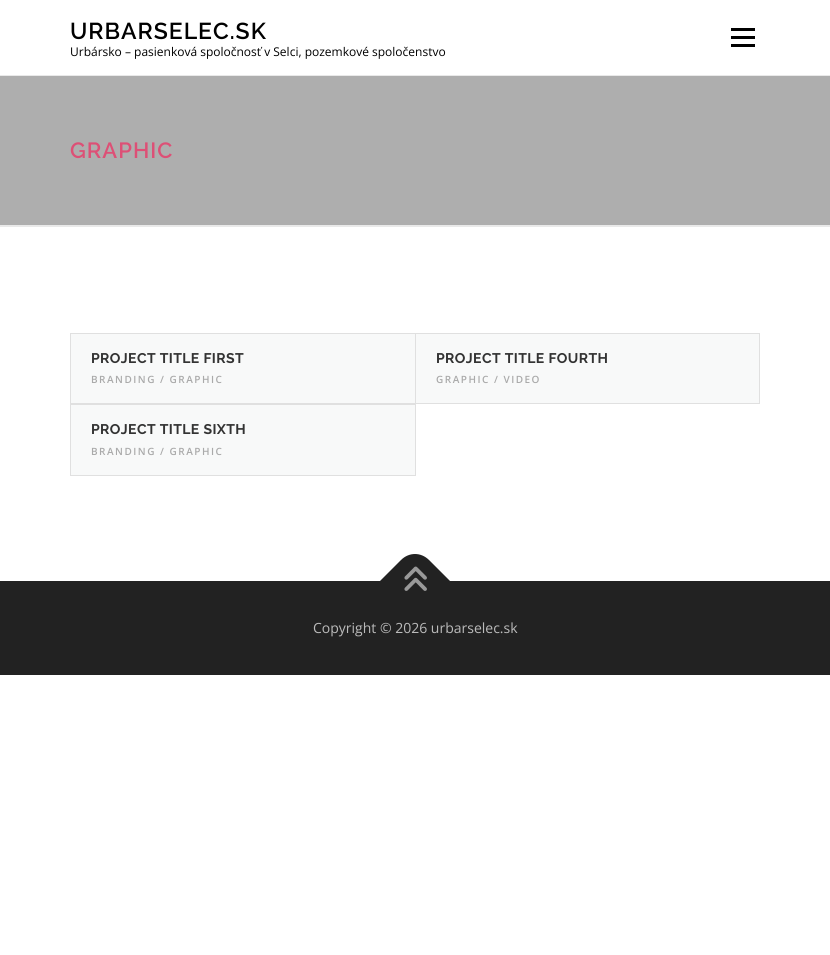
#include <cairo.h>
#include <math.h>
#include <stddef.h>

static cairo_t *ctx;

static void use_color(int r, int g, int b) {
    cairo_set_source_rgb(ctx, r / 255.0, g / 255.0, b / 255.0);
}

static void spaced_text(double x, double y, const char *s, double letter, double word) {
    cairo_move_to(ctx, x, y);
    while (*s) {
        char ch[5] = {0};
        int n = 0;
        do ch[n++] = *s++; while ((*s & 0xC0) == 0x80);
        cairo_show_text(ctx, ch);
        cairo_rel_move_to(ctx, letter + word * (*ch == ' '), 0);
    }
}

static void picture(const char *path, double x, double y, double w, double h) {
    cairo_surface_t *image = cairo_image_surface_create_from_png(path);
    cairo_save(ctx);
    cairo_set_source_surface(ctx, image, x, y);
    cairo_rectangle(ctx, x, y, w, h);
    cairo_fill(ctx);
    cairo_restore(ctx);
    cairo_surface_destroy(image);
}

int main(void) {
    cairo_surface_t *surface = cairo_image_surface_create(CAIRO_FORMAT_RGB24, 830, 955);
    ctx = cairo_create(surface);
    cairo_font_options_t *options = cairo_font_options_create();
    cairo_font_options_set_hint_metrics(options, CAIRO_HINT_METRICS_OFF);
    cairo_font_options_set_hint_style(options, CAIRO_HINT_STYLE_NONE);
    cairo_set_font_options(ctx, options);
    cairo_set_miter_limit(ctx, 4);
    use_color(255, 255, 255);
    cairo_paint(ctx);
    cairo_select_font_face(ctx, "Raleway SemiBold", CAIRO_FONT_SLANT_NORMAL, CAIRO_FONT_WEIGHT_NORMAL);
    cairo_set_font_size(ctx, 23);
    use_color(0, 0, 0);
    spaced_text(70, 39, "URBARSELEC.SK", 1, 0);
    cairo_select_font_face(ctx, "Open Sans", CAIRO_FONT_SLANT_NORMAL, CAIRO_FONT_WEIGHT_NORMAL);
    cairo_set_font_size(ctx, 12);
    cairo_move_to(ctx, 70, 56);
    cairo_show_text(ctx, "Urbársko – pasienková spoločnosť v Selci, pozemkové spoločenstvo");
    cairo_rectangle(ctx, 731, 36, 24, 3);
    cairo_fill(ctx);
    cairo_rectangle(ctx, 731, 28, 24, 3);
    cairo_fill(ctx);
    cairo_rectangle(ctx, 731, 44, 24, 3);
    cairo_fill(ctx);
    use_color(233, 233, 233);
    cairo_rectangle(ctx, 0, 75, 830, 1);
    cairo_fill(ctx);
    use_color(174, 174, 174);
    cairo_rectangle(ctx, 0, 76, 830, 149);
    cairo_fill(ctx);
    cairo_select_font_face(ctx, "Raleway SemiBold", CAIRO_FONT_SLANT_NORMAL, CAIRO_FONT_WEIGHT_NORMAL);
    cairo_set_font_size(ctx, 22);
    use_color(221, 80, 118);
    spaced_text(70, 158, "GRAPHIC", 1, 0);
    use_color(233, 233, 233);
    cairo_rectangle(ctx, 0, 225, 830, 2);
    cairo_fill(ctx);
    use_color(224, 224, 224);
    cairo_rectangle(ctx, 70, 333, 1, 143);
    cairo_fill(ctx);
    cairo_rectangle(ctx, 71, 333, 689, 1);
    cairo_fill(ctx);
    cairo_rectangle(ctx, 415, 333, 1, 71);
    cairo_fill(ctx);
    cairo_rectangle(ctx, 71, 403, 345, 2);
    cairo_fill(ctx);
    use_color(248, 249, 249);
    cairo_rectangle(ctx, 71, 334, 344, 69);
    cairo_fill(ctx);
    cairo_select_font_face(ctx, "Raleway", CAIRO_FONT_SLANT_NORMAL, CAIRO_FONT_WEIGHT_BOLD);
    cairo_set_font_size(ctx, 14);
    use_color(51, 51, 51);
    spaced_text(91, 363, "PROJECT TITLE FIRST", 0.4, 0);
    cairo_select_font_face(ctx, "Open Sans SemiBold", CAIRO_FONT_SLANT_NORMAL, CAIRO_FONT_WEIGHT_NORMAL);
    cairo_set_font_size(ctx, 10);
    use_color(170, 170, 170);
    spaced_text(91, 383, "BRANDING / GRAPHIC", 1.5, 0);
    use_color(224, 224, 224);
    cairo_rectangle(ctx, 759, 333, 1, 71);
    cairo_fill(ctx);
    cairo_rectangle(ctx, 416, 403, 344, 1);
    cairo_fill(ctx);
    use_color(248, 249, 249);
    cairo_rectangle(ctx, 416, 334, 343, 69);
    cairo_fill(ctx);
    cairo_select_font_face(ctx, "Raleway", CAIRO_FONT_SLANT_NORMAL, CAIRO_FONT_WEIGHT_BOLD);
    cairo_set_font_size(ctx, 14);
    use_color(51, 51, 51);
    spaced_text(436, 363, "PROJECT TITLE FOURTH", 0.4, 0);
    cairo_select_font_face(ctx, "Open Sans SemiBold", CAIRO_FONT_SLANT_NORMAL, CAIRO_FONT_WEIGHT_NORMAL);
    cairo_set_font_size(ctx, 10);
    use_color(170, 170, 170);
    spaced_text(436, 383, "GRAPHIC / VIDEO", 1.5, 0);
    use_color(224, 224, 224);
    cairo_rectangle(ctx, 415, 404, 1, 72);
    cairo_fill(ctx);
    cairo_rectangle(ctx, 71, 475, 345, 1);
    cairo_fill(ctx);
    use_color(248, 249, 249);
    cairo_rectangle(ctx, 71, 405, 344, 70);
    cairo_fill(ctx);
    cairo_select_font_face(ctx, "Raleway", CAIRO_FONT_SLANT_NORMAL, CAIRO_FONT_WEIGHT_BOLD);
    cairo_set_font_size(ctx, 14);
    use_color(51, 51, 51);
    spaced_text(91, 434, "PROJECT TITLE SIXTH", 0.4, 0);
    cairo_select_font_face(ctx, "Open Sans SemiBold", CAIRO_FONT_SLANT_NORMAL, CAIRO_FONT_WEIGHT_NORMAL);
    cairo_set_font_size(ctx, 10);
    use_color(170, 170, 170);
    spaced_text(91, 455, "BRANDING / GRAPHIC", 1.5, 0);
    use_color(34, 34, 34);
    cairo_rectangle(ctx, 0, 581, 830, 94);
    cairo_fill(ctx);
    cairo_new_path(ctx);
    cairo_move_to(ctx, 380, 581);
    cairo_line_to(ctx, 401, 560);
    cairo_curve_to(ctx, 409, 552, 421, 552, 429, 560);
    cairo_line_to(ctx, 450, 581);
    cairo_line_to(ctx, 415, 617);
    cairo_close_path(ctx);
    cairo_fill(ctx);
    picture("img1.png", 404, 566, 23, 25);
    cairo_select_font_face(ctx, "Open Sans", CAIRO_FONT_SLANT_NORMAL, CAIRO_FONT_WEIGHT_NORMAL);
    cairo_set_font_size(ctx, 14);
    use_color(187, 187, 187);
    cairo_move_to(ctx, 313, 633);
    cairo_show_text(ctx, "Copyright © 2026 urbarselec.sk");
    cairo_surface_write_to_png(surface, "result.png");
    cairo_font_options_destroy(options);
    cairo_destroy(ctx);
    cairo_surface_destroy(surface);
    return 0;
}
